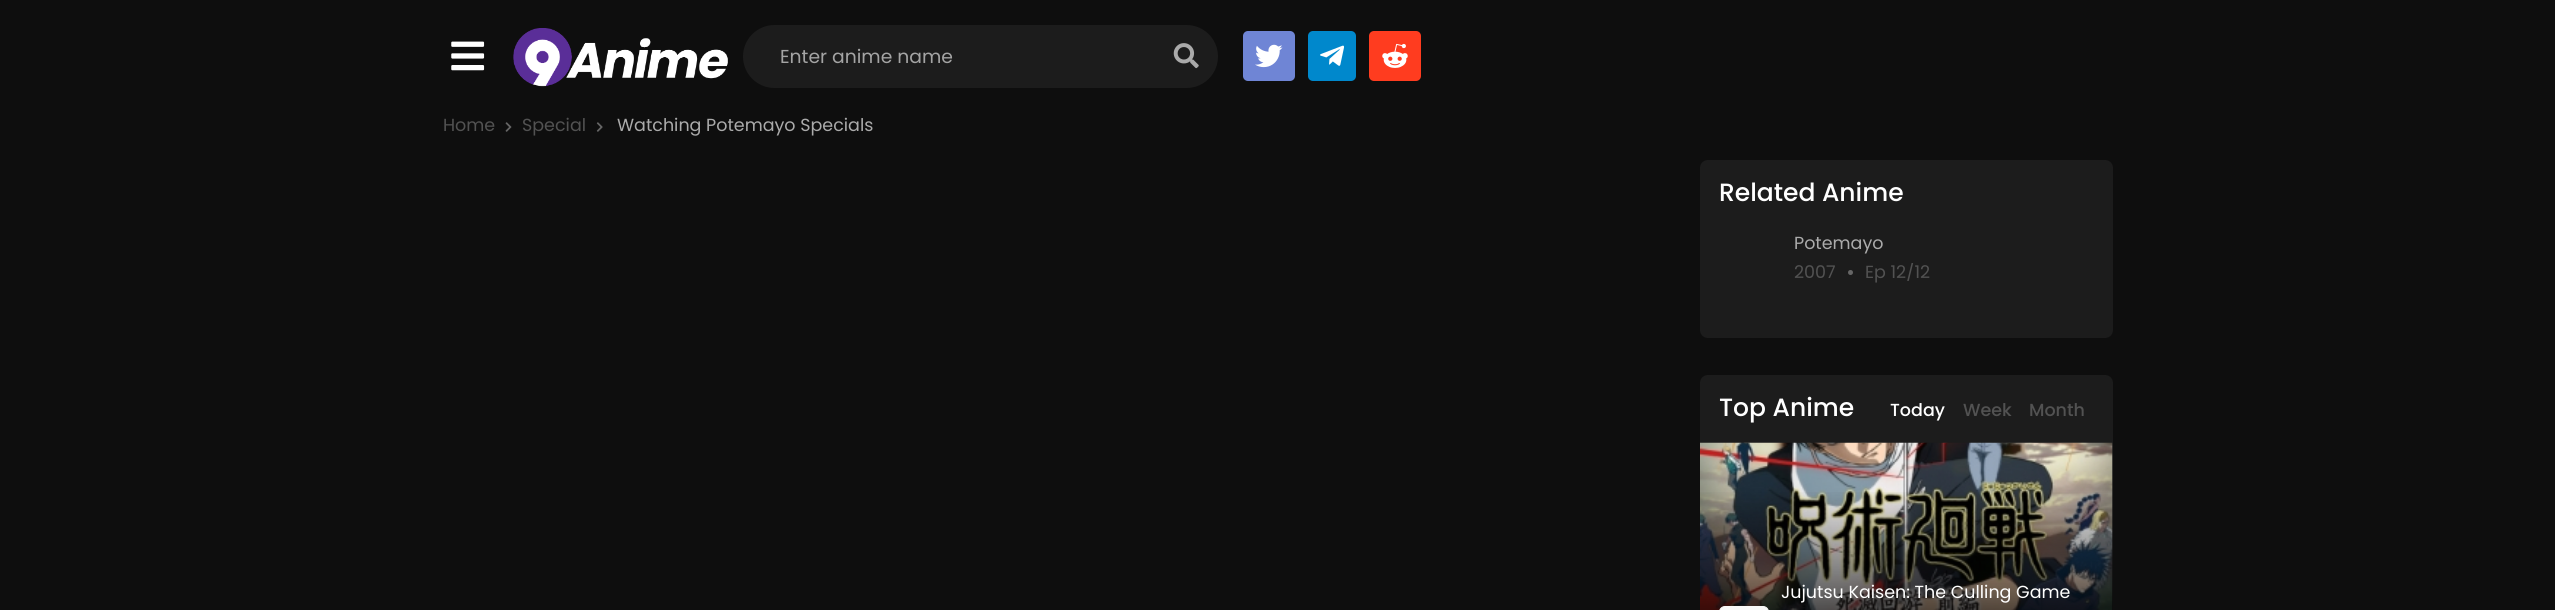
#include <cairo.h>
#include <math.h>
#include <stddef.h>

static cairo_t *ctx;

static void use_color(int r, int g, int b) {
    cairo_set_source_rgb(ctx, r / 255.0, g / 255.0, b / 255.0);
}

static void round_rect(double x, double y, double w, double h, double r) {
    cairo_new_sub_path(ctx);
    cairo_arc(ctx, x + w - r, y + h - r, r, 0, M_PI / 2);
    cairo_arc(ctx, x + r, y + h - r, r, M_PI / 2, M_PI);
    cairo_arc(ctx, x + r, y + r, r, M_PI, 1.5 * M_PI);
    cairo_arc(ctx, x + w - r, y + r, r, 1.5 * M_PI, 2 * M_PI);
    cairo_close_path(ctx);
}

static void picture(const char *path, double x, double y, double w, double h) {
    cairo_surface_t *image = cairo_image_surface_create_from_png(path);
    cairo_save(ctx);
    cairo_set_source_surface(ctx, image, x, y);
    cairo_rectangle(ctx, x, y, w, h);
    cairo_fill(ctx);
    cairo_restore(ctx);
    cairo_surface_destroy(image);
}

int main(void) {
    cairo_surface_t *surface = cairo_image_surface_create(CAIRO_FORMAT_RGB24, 2555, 610);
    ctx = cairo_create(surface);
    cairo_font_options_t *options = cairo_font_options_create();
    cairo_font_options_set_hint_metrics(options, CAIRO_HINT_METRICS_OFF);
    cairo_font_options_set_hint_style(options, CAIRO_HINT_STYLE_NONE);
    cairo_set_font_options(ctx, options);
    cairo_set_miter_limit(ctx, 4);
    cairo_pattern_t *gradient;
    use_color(14, 14, 14);
    cairo_paint(ctx);
    picture("img1.png", 451, 41, 34, 30);
    picture("img2.png", 513, 28, 215, 59);
    use_color(28, 28, 28);
    round_rect(743, 25, 475, 63, 31.5);
    cairo_fill(ctx);
    cairo_select_font_face(ctx, "Poppins", CAIRO_FONT_SLANT_NORMAL, CAIRO_FONT_WEIGHT_NORMAL);
    cairo_set_font_size(ctx, 18.75);
    use_color(164, 164, 164);
    cairo_move_to(ctx, 780, 63);
    cairo_show_text(ctx, "Enter anime name");
    picture("img3.png", 1173, 43, 26, 26);
    use_color(111, 133, 213);
    round_rect(1243, 31, 52, 50, 5);
    cairo_fill(ctx);
    picture("img4.png", 1255, 44, 28, 24);
    use_color(0, 136, 204);
    round_rect(1308, 31, 48, 50, 5);
    cairo_fill(ctx);
    picture("img5.png", 1320, 45, 24, 21);
    use_color(255, 60, 31);
    round_rect(1369, 31, 52, 50, 5);
    cairo_fill(ctx);
    picture("img6.png", 1382, 43, 26, 25);
    cairo_set_font_size(ctx, 17.5);
    use_color(82, 82, 82);
    cairo_move_to(ctx, 443, 131);
    cairo_show_text(ctx, "Home");
    picture("img7.png", 505, 122, 7, 10);
    cairo_move_to(ctx, 522, 131);
    cairo_show_text(ctx, "Special");
    picture("img8.png", 596, 122, 7, 10);
    use_color(171, 171, 171);
    cairo_move_to(ctx, 617, 131);
    cairo_show_text(ctx, "Watching Potemayo Specials");
    use_color(28, 28, 28);
    round_rect(1700, 160, 413, 178, 8);
    cairo_fill(ctx);
    cairo_select_font_face(ctx, "Poppins Medium", CAIRO_FONT_SLANT_NORMAL, CAIRO_FONT_WEIGHT_NORMAL);
    cairo_set_font_size(ctx, 25);
    use_color(255, 255, 255);
    cairo_move_to(ctx, 1719, 201);
    cairo_show_text(ctx, "Related Anime");
    cairo_select_font_face(ctx, "Poppins", CAIRO_FONT_SLANT_NORMAL, CAIRO_FONT_WEIGHT_NORMAL);
    cairo_set_font_size(ctx, 17.5);
    use_color(171, 171, 171);
    cairo_move_to(ctx, 1794, 249);
    cairo_show_text(ctx, "Potemayo");
    use_color(82, 82, 82);
    cairo_move_to(ctx, 1794, 278);
    cairo_show_text(ctx, "2007");
    use_color(102, 102, 102);
    cairo_new_path(ctx);
    cairo_arc(ctx, 1850.5, 272.5, 2.5, 0, 2 * M_PI);
    cairo_fill(ctx);
    cairo_save(ctx);
    cairo_rectangle(ctx, 1794, 263, 300, 20);
    cairo_clip(ctx);
    use_color(82, 82, 82);
    cairo_move_to(ctx, 1865, 278);
    cairo_show_text(ctx, "Ep 12/12");
    cairo_restore(ctx);
    use_color(28, 28, 28);
    round_rect(1700, 375, 413, 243, 8);
    cairo_fill(ctx);
    cairo_select_font_face(ctx, "Poppins Medium", CAIRO_FONT_SLANT_NORMAL, CAIRO_FONT_WEIGHT_NORMAL);
    cairo_set_font_size(ctx, 25);
    use_color(255, 255, 255);
    cairo_move_to(ctx, 1719, 416);
    cairo_show_text(ctx, "Top Anime");
    cairo_set_font_size(ctx, 17.5);
    cairo_move_to(ctx, 1890, 416);
    cairo_show_text(ctx, "Today");
    use_color(82, 82, 82);
    cairo_move_to(ctx, 1963, 416);
    cairo_show_text(ctx, "Week");
    cairo_move_to(ctx, 2029, 416);
    cairo_show_text(ctx, "Month");
    picture("img9.png", 1700, 442, 413, 168);
    gradient = cairo_pattern_create_linear(1906, 488, 1906, 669);
    cairo_pattern_add_color_stop_rgba(gradient, 0, 0, 0, 0, 0);
    cairo_pattern_add_color_stop_rgba(gradient, 1, 0, 0, 0, 1);
    cairo_set_source(ctx, gradient);
    cairo_pattern_destroy(gradient);
    cairo_rectangle(ctx, 1700, 492, 413, 118);
    cairo_fill(ctx);
    cairo_select_font_face(ctx, "Poppins", CAIRO_FONT_SLANT_NORMAL, CAIRO_FONT_WEIGHT_NORMAL);
    use_color(255, 255, 255);
    cairo_move_to(ctx, 1781, 598);
    cairo_show_text(ctx, "Jujutsu Kaisen: The Culling Game");
    use_color(248, 248, 248);
    round_rect(1719.5, 606.5, 49, 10, 5.5);
    cairo_fill_preserve(ctx);
    cairo_set_line_width(ctx, 1);
    cairo_stroke(ctx);
    cairo_surface_write_to_png(surface, "result.png");
    cairo_font_options_destroy(options);
    cairo_destroy(ctx);
    cairo_surface_destroy(surface);
    return 0;
}
